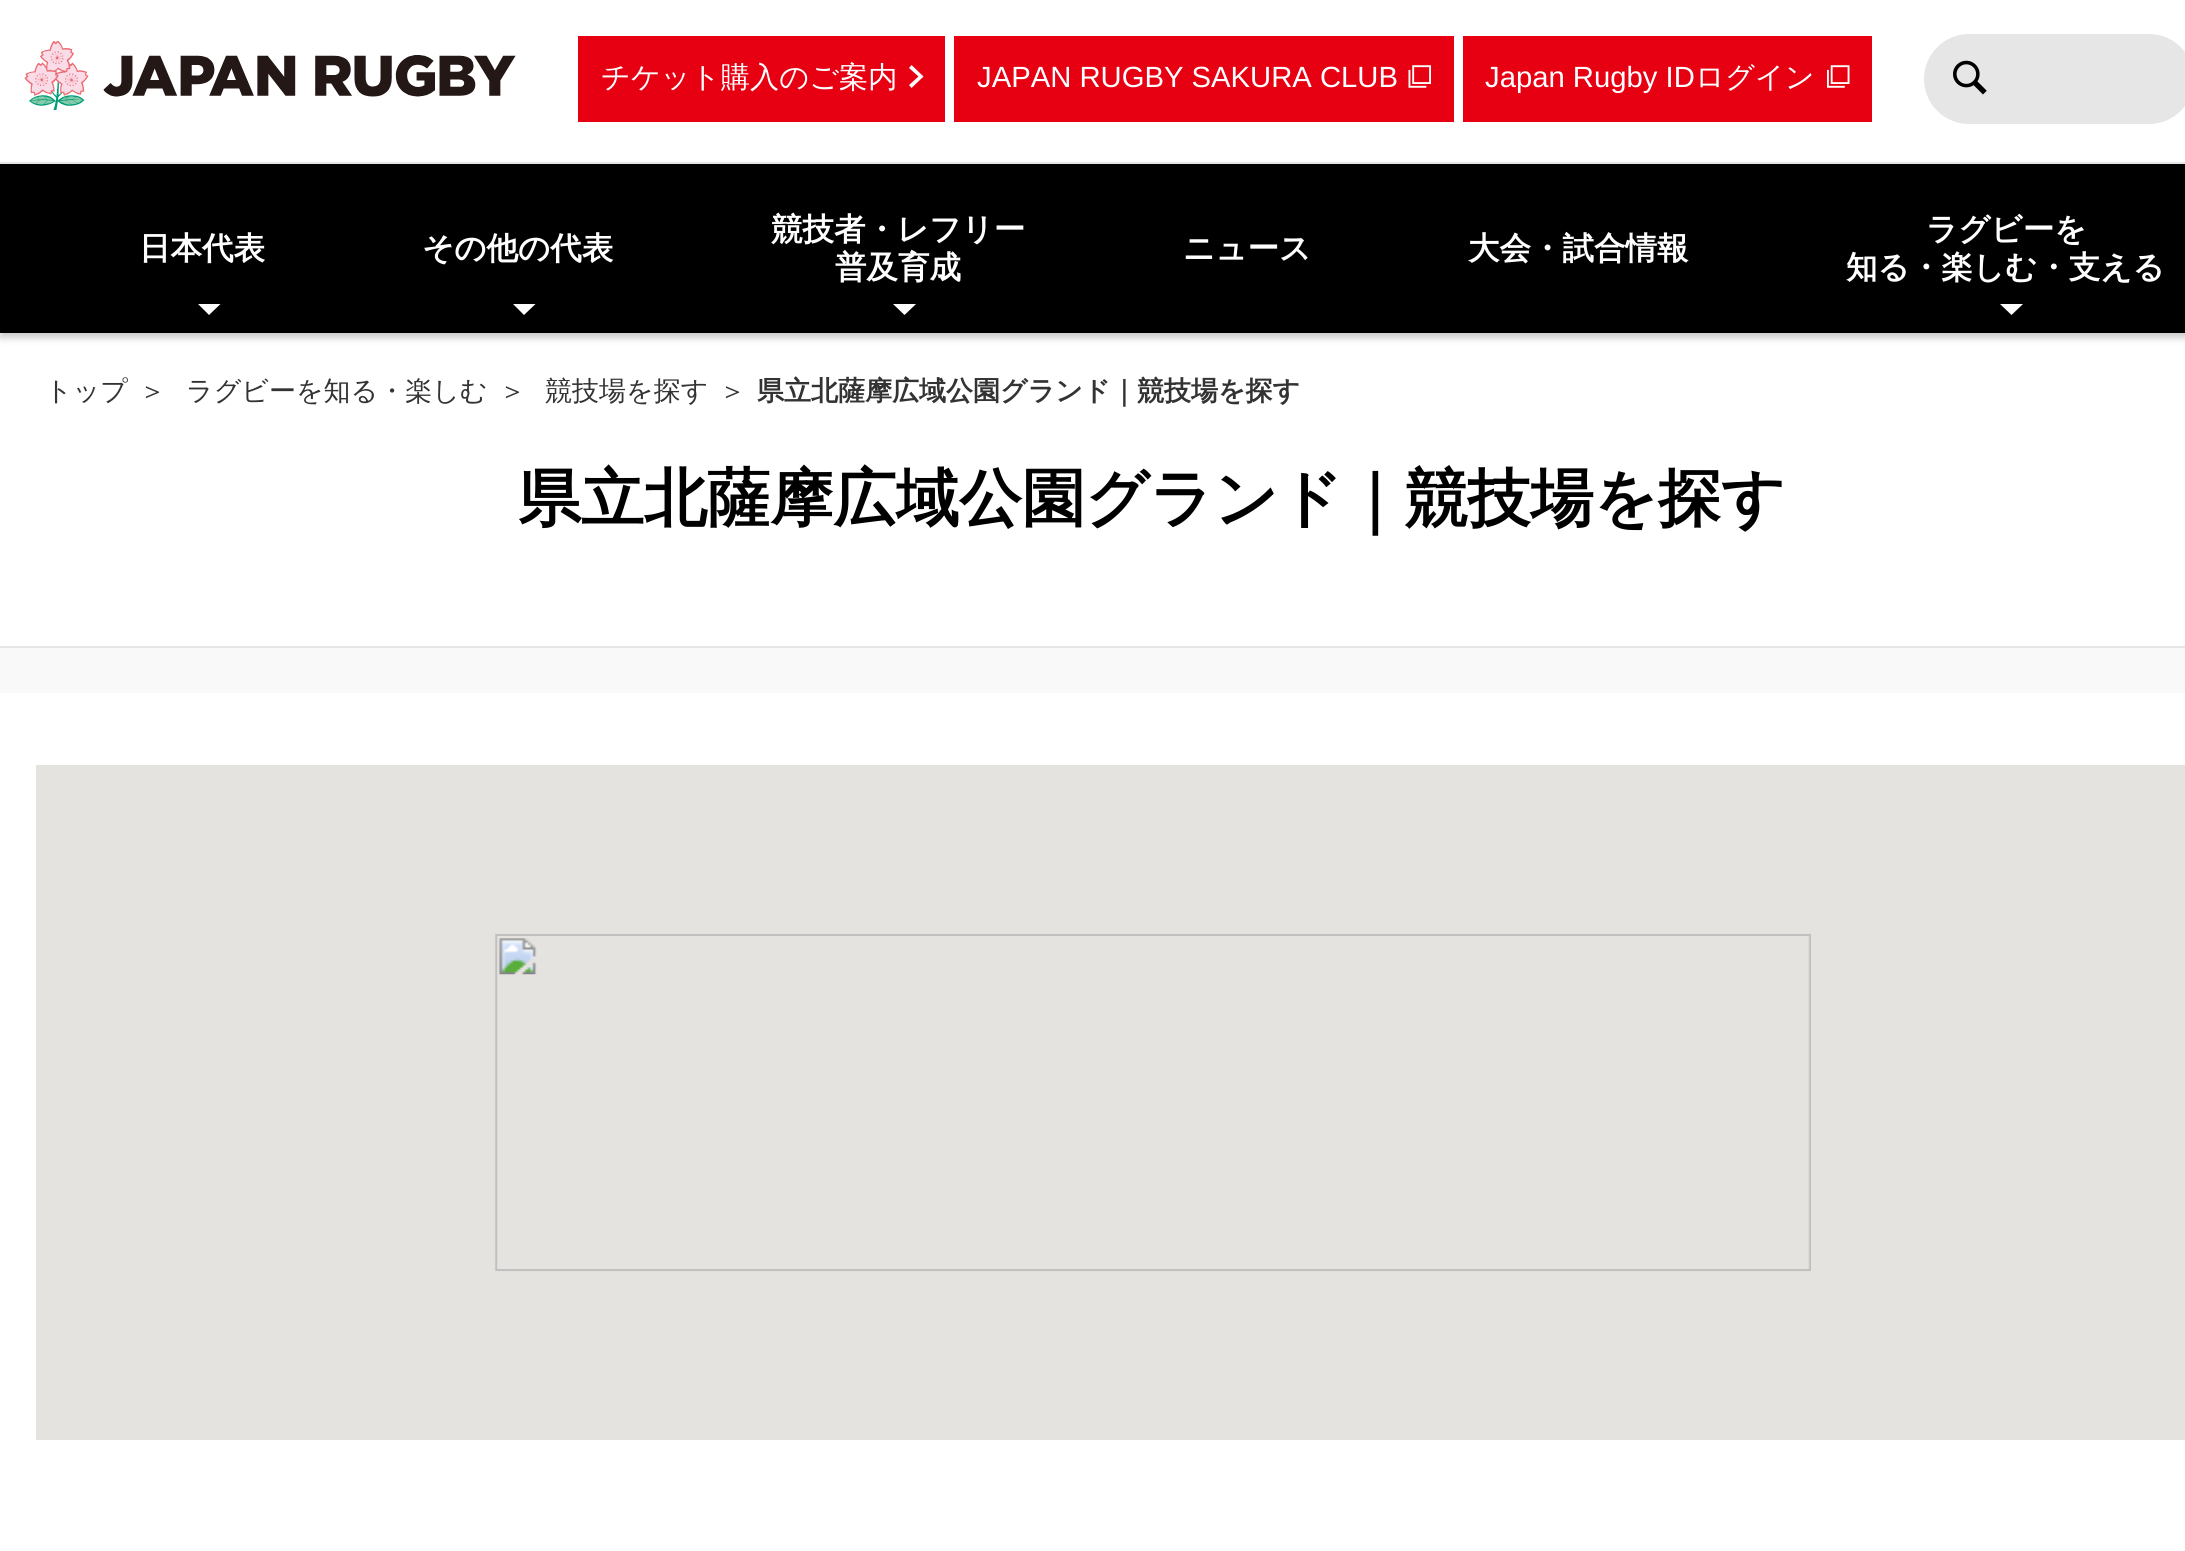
#include <cairo.h>
#include <math.h>
#include <stddef.h>

static cairo_t *ctx;

static void use_color(int r, int g, int b) {
    cairo_set_source_rgb(ctx, r / 255.0, g / 255.0, b / 255.0);
}

static void round_rect(double x, double y, double w, double h, double r) {
    cairo_new_sub_path(ctx);
    cairo_arc(ctx, x + w - r, y + h - r, r, 0, M_PI / 2);
    cairo_arc(ctx, x + r, y + h - r, r, M_PI / 2, M_PI);
    cairo_arc(ctx, x + r, y + r, r, M_PI, 1.5 * M_PI);
    cairo_arc(ctx, x + w - r, y + r, r, 1.5 * M_PI, 2 * M_PI);
    cairo_close_path(ctx);
}

static void shadow(double x, double y, double w, double h, double r, double blur, double alpha) {
    cairo_push_group_with_content(ctx, CAIRO_CONTENT_ALPHA);
    cairo_set_operator(ctx, CAIRO_OPERATOR_SOURCE);
    for (int i = 15; i >= -15 && fmin(w, h) + blur * i / 3 > 0; i -= 2) {
        double e = blur * i / 6;
        cairo_set_source_rgba(ctx, 0, 0, 0, alpha * erfc((i - 1) / 8.5) / 2);
        round_rect(x - e, y - e, w + 2 * e, h + 2 * e, fmax(0, fmin(r + e + blur * .6, fmin(w, h) / 2 + e)));
        cairo_fill(ctx);
    }
    cairo_pattern_t *soft = cairo_pop_group(ctx);
    cairo_mask(ctx, soft);
    cairo_pattern_destroy(soft);
}

static void picture(const char *path, double x, double y, double w, double h) {
    cairo_surface_t *image = cairo_image_surface_create_from_png(path);
    cairo_save(ctx);
    cairo_set_source_surface(ctx, image, x, y);
    cairo_rectangle(ctx, x, y, w, h);
    cairo_fill(ctx);
    cairo_restore(ctx);
    cairo_surface_destroy(image);
}

int main(void) {
    cairo_surface_t *surface = cairo_image_surface_create(CAIRO_FORMAT_RGB24, 2185, 1551);
    ctx = cairo_create(surface);
    cairo_font_options_t *options = cairo_font_options_create();
    cairo_font_options_set_hint_metrics(options, CAIRO_HINT_METRICS_OFF);
    cairo_font_options_set_hint_style(options, CAIRO_HINT_STYLE_NONE);
    cairo_set_font_options(ctx, options);
    cairo_set_miter_limit(ctx, 4);
    use_color(255, 255, 255);
    cairo_paint(ctx);
    picture("img1.png", 24, 41, 492, 69);
    use_color(230, 0, 18);
    cairo_rectangle(ctx, 578, 36, 367, 86);
    cairo_fill(ctx);
    cairo_select_font_face(ctx, "WenQuanYi Zen Hei Medium", CAIRO_FONT_SLANT_NORMAL, CAIRO_FONT_WEIGHT_NORMAL);
    cairo_set_font_size(ctx, 29.25);
    use_color(255, 255, 255);
    cairo_move_to(ctx, 601, 87);
    cairo_show_text(ctx, "チケット購入のご案内");
    cairo_new_path(ctx);
    cairo_move_to(ctx, 911.5, 88);
    cairo_line_to(ctx, 909, 85);
    cairo_line_to(ctx, 918.5, 76.5);
    cairo_line_to(ctx, 909, 68);
    cairo_line_to(ctx, 911.5, 65);
    cairo_line_to(ctx, 923.5, 76.5);
    cairo_close_path(ctx);
    cairo_fill(ctx);
    use_color(230, 0, 18);
    cairo_rectangle(ctx, 954, 36, 500, 86);
    cairo_fill(ctx);
    cairo_select_font_face(ctx, "Liberation Sans", CAIRO_FONT_SLANT_NORMAL, CAIRO_FONT_WEIGHT_NORMAL);
    use_color(255, 255, 255);
    cairo_move_to(ctx, 977, 87);
    cairo_show_text(ctx, "JAPAN RUGBY SAKURA CLUB");
    picture("img2.png", 1408, 65, 23, 23);
    use_color(230, 0, 18);
    cairo_rectangle(ctx, 1463, 36, 409, 86);
    cairo_fill(ctx);
    use_color(255, 255, 255);
    cairo_move_to(ctx, 1485, 87);
    cairo_show_text(ctx, "Japan Rugby ID");
    cairo_select_font_face(ctx, "WenQuanYi Zen Hei Medium", CAIRO_FONT_SLANT_NORMAL, CAIRO_FONT_WEIGHT_NORMAL);
    cairo_move_to(ctx, 1695, 87);
    cairo_show_text(ctx, "ログイン");
    picture("img3.png", 1827, 65, 23, 23);
    use_color(230, 230, 230);
    round_rect(1924, 34, 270, 90, 45);
    cairo_fill(ctx);
    picture("img4.png", 1953, 60, 34, 35);
    use_color(0, 0, 0);
    shadow(0, 167, 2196, 171, 0, 3.5, 0.2);
    use_color(0, 0, 0);
    cairo_rectangle(ctx, 0, 164, 2185, 169);
    cairo_fill(ctx);
    use_color(230, 230, 230);
    cairo_rectangle(ctx, 0, 162, 2185, 2);
    cairo_fill(ctx);
    cairo_select_font_face(ctx, "WenQuanYi Zen Hei", CAIRO_FONT_SLANT_NORMAL, CAIRO_FONT_WEIGHT_BOLD);
    cairo_set_font_size(ctx, 31.5);
    use_color(255, 255, 255);
    cairo_move_to(ctx, 139, 259);
    cairo_show_text(ctx, "日本代表");
    cairo_new_path(ctx);
    cairo_move_to(ctx, 198, 304);
    cairo_line_to(ctx, 220.5, 304);
    cairo_line_to(ctx, 209, 315);
    cairo_close_path(ctx);
    cairo_fill(ctx);
    cairo_move_to(ctx, 422, 259);
    cairo_show_text(ctx, "その他の代表");
    cairo_new_path(ctx);
    cairo_move_to(ctx, 513, 304);
    cairo_line_to(ctx, 535.5, 304);
    cairo_line_to(ctx, 524, 315);
    cairo_close_path(ctx);
    cairo_fill(ctx);
    cairo_move_to(ctx, 771, 240);
    cairo_show_text(ctx, "競技者・レフリー");
    cairo_move_to(ctx, 835, 278);
    cairo_show_text(ctx, "普及育成");
    cairo_new_path(ctx);
    cairo_move_to(ctx, 893, 304);
    cairo_line_to(ctx, 916, 304);
    cairo_line_to(ctx, 904.5, 315);
    cairo_close_path(ctx);
    cairo_fill(ctx);
    cairo_move_to(ctx, 1183, 259);
    cairo_show_text(ctx, "ニュース");
    cairo_move_to(ctx, 1468, 259);
    cairo_show_text(ctx, "大会・試合情報");
    cairo_move_to(ctx, 1926, 240);
    cairo_show_text(ctx, "ラグビーを");
    cairo_move_to(ctx, 1846, 278);
    cairo_show_text(ctx, "知る・楽しむ・支える");
    cairo_new_path(ctx);
    cairo_move_to(ctx, 2000, 304);
    cairo_line_to(ctx, 2023, 304);
    cairo_line_to(ctx, 2011.5, 315);
    cairo_close_path(ctx);
    cairo_fill(ctx);
    cairo_select_font_face(ctx, "WenQuanYi Zen Hei Medium", CAIRO_FONT_SLANT_NORMAL, CAIRO_FONT_WEIGHT_NORMAL);
    cairo_set_font_size(ctx, 27);
    use_color(51, 51, 51);
    cairo_move_to(ctx, 45, 400);
    cairo_show_text(ctx, "トップ");
    cairo_move_to(ctx, 139, 400);
    cairo_show_text(ctx, "＞");
    cairo_move_to(ctx, 186, 400);
    cairo_show_text(ctx, "ラグビーを知る・楽しむ");
    cairo_move_to(ctx, 499, 400);
    cairo_show_text(ctx, "＞");
    cairo_move_to(ctx, 545, 400);
    cairo_show_text(ctx, "競技場を探す");
    cairo_move_to(ctx, 719, 400);
    cairo_show_text(ctx, "＞");
    cairo_select_font_face(ctx, "WenQuanYi Zen Hei", CAIRO_FONT_SLANT_NORMAL, CAIRO_FONT_WEIGHT_BOLD);
    cairo_move_to(ctx, 757, 400);
    cairo_show_text(ctx, "県立北薩摩広域公園グランド｜競技場を探す");
    cairo_set_font_size(ctx, 63);
    use_color(0, 0, 0);
    cairo_move_to(ctx, 518, 520);
    cairo_show_text(ctx, "県立北薩摩広域公園グランド｜競技場を探す");
    use_color(249, 249, 249);
    cairo_rectangle(ctx, 0, 648, 2185, 45);
    cairo_fill(ctx);
    use_color(230, 230, 230);
    cairo_rectangle(ctx, 0, 646, 2185, 2);
    cairo_fill(ctx);
    picture("img5.png", 36, 765, 2149, 675);
    cairo_surface_write_to_png(surface, "result.png");
    cairo_font_options_destroy(options);
    cairo_destroy(ctx);
    cairo_surface_destroy(surface);
    return 0;
}
